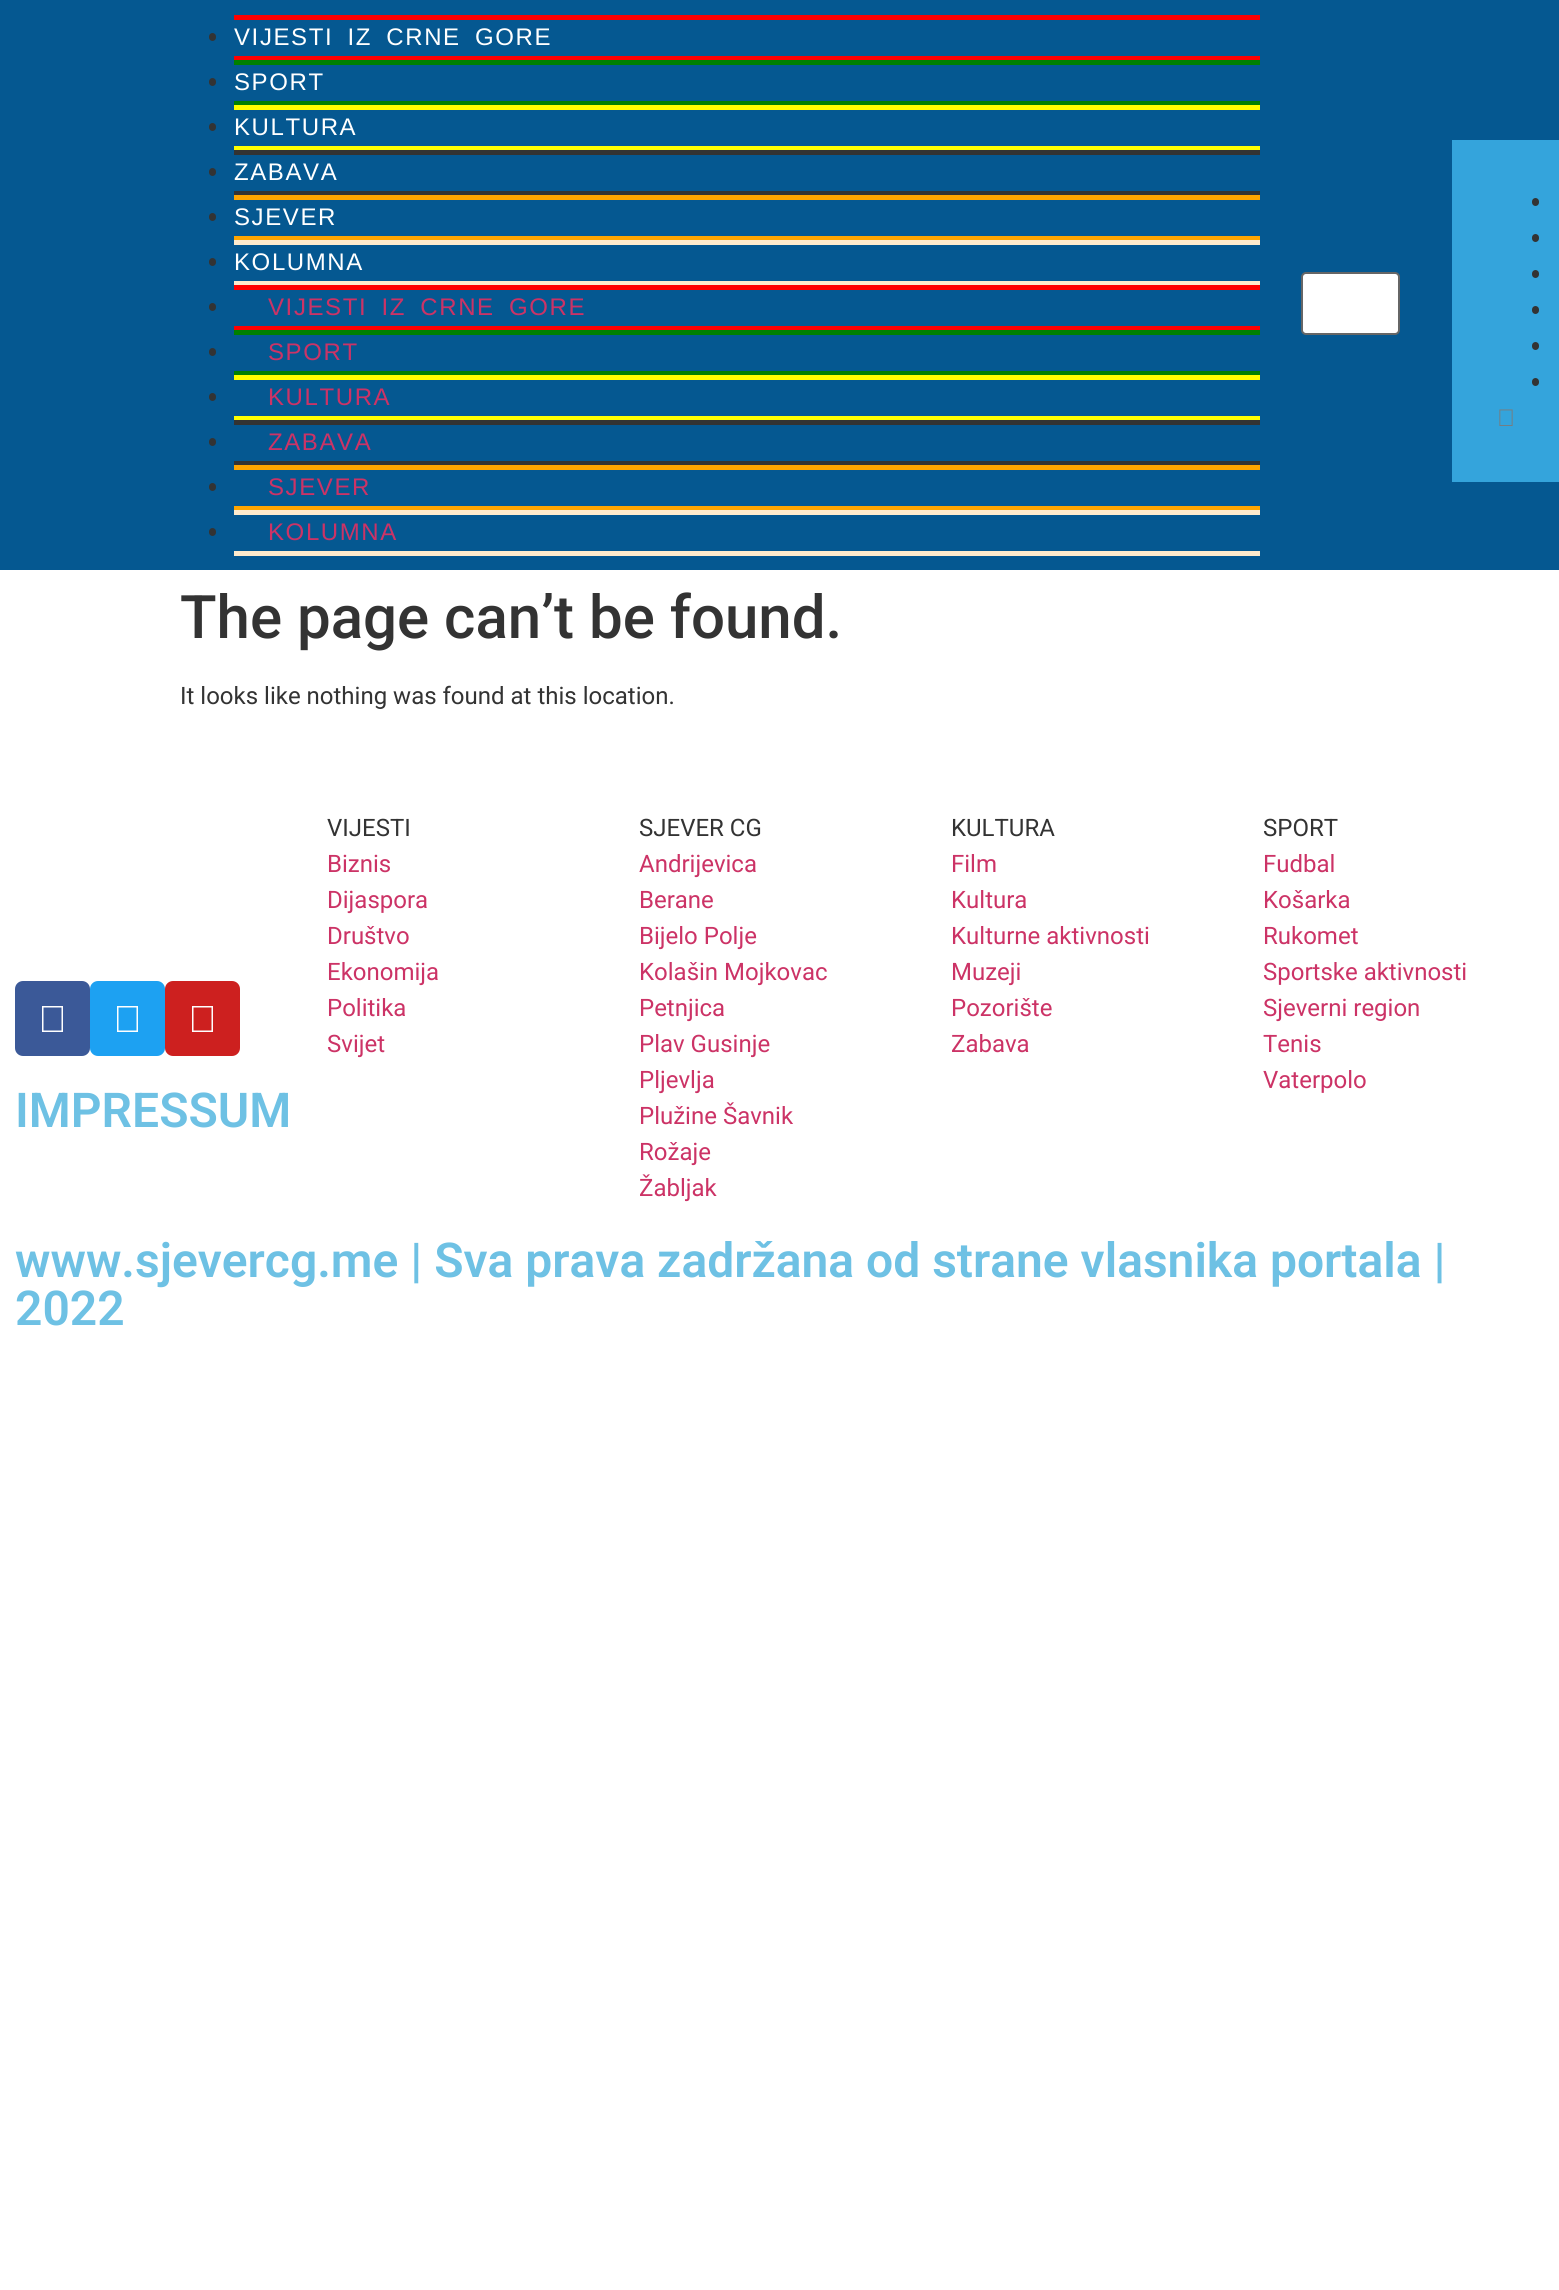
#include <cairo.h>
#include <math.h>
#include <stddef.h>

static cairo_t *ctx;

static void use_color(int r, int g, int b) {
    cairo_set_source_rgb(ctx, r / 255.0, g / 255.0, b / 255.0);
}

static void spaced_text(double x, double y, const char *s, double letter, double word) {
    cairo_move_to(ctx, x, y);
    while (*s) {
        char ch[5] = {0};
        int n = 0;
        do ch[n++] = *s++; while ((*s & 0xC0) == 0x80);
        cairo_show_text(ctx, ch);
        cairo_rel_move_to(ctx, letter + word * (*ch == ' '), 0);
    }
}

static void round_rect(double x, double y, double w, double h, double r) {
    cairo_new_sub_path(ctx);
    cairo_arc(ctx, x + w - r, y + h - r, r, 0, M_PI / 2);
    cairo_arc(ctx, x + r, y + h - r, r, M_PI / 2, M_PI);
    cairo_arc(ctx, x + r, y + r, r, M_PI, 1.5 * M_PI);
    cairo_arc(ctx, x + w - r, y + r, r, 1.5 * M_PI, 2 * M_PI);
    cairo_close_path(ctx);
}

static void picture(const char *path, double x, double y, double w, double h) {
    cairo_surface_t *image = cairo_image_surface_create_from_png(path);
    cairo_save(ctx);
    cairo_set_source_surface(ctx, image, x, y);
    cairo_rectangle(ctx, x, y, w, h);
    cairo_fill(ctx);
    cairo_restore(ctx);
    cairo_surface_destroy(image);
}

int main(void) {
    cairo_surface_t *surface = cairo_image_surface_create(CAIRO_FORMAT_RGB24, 1559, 2290);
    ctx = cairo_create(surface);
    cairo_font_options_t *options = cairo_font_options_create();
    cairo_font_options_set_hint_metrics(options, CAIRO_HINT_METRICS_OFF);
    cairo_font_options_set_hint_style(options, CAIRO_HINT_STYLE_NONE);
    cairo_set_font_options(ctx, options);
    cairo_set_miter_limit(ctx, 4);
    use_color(255, 255, 255);
    cairo_paint(ctx);
    use_color(5, 88, 145);
    cairo_rectangle(ctx, 0, 0, 1559, 570);
    cairo_fill(ctx);
    use_color(255, 0, 0);
    cairo_rectangle(ctx, 234, 15, 1026, 5);
    cairo_fill(ctx);
    cairo_rectangle(ctx, 234, 56, 1026, 4);
    cairo_fill(ctx);
    use_color(51, 51, 51);
    round_rect(209, 33, 7, 8, 3.5);
    cairo_fill(ctx);
    cairo_select_font_face(ctx, "Liberation Sans", CAIRO_FONT_SLANT_NORMAL, CAIRO_FONT_WEIGHT_NORMAL);
    cairo_set_font_size(ctx, 24);
    use_color(255, 255, 255);
    spaced_text(234, 45, "VIJESTI IZ CRNE GORE", 1.6, 6);
    use_color(0, 128, 0);
    cairo_rectangle(ctx, 234, 60, 1026, 5);
    cairo_fill(ctx);
    cairo_rectangle(ctx, 234, 101, 1026, 4);
    cairo_fill(ctx);
    use_color(51, 51, 51);
    round_rect(209, 78, 7, 8, 3.5);
    cairo_fill(ctx);
    use_color(255, 255, 255);
    spaced_text(234, 90, "SPORT", 1.6, 0);
    use_color(255, 255, 0);
    cairo_rectangle(ctx, 234, 105, 1026, 5);
    cairo_fill(ctx);
    cairo_rectangle(ctx, 234, 146, 1026, 4);
    cairo_fill(ctx);
    use_color(51, 51, 51);
    round_rect(209, 123, 7, 8, 3.5);
    cairo_fill(ctx);
    use_color(255, 255, 255);
    spaced_text(234, 135, "KULTURA", 1.6, 0);
    use_color(51, 51, 51);
    cairo_rectangle(ctx, 234, 150, 1026, 5);
    cairo_fill(ctx);
    cairo_rectangle(ctx, 234, 191, 1026, 4);
    cairo_fill(ctx);
    round_rect(209, 168, 7, 8, 3.5);
    cairo_fill(ctx);
    use_color(255, 255, 255);
    spaced_text(234, 180, "ZABAVA", 1.6, 0);
    use_color(255, 165, 0);
    cairo_rectangle(ctx, 234, 195, 1026, 5);
    cairo_fill(ctx);
    cairo_rectangle(ctx, 234, 236, 1026, 4);
    cairo_fill(ctx);
    use_color(51, 51, 51);
    round_rect(209, 213, 7, 8, 3.5);
    cairo_fill(ctx);
    use_color(255, 255, 255);
    spaced_text(234, 225, "SJEVER", 1.6, 0);
    use_color(255, 235, 205);
    cairo_rectangle(ctx, 234, 240, 1026, 5);
    cairo_fill(ctx);
    cairo_rectangle(ctx, 234, 281, 1026, 4);
    cairo_fill(ctx);
    use_color(51, 51, 51);
    round_rect(209, 258, 7, 8, 3.5);
    cairo_fill(ctx);
    use_color(255, 255, 255);
    spaced_text(234, 270, "KOLUMNA", 1.6, 0);
    use_color(255, 0, 0);
    cairo_rectangle(ctx, 234, 285, 1026, 5);
    cairo_fill(ctx);
    cairo_rectangle(ctx, 234, 326, 1026, 4);
    cairo_fill(ctx);
    use_color(51, 51, 51);
    round_rect(209, 303, 7, 8, 3.5);
    cairo_fill(ctx);
    use_color(204, 51, 102);
    spaced_text(268, 315, "VIJESTI IZ CRNE GORE", 1.6, 6);
    use_color(0, 128, 0);
    cairo_rectangle(ctx, 234, 330, 1026, 5);
    cairo_fill(ctx);
    cairo_rectangle(ctx, 234, 371, 1026, 4);
    cairo_fill(ctx);
    use_color(51, 51, 51);
    round_rect(209, 348, 7, 8, 3.5);
    cairo_fill(ctx);
    use_color(204, 51, 102);
    spaced_text(268, 360, "SPORT", 1.6, 0);
    use_color(255, 255, 0);
    cairo_rectangle(ctx, 234, 375, 1026, 5);
    cairo_fill(ctx);
    cairo_rectangle(ctx, 234, 416, 1026, 4);
    cairo_fill(ctx);
    use_color(51, 51, 51);
    round_rect(209, 393, 7, 8, 3.5);
    cairo_fill(ctx);
    use_color(204, 51, 102);
    spaced_text(268, 405, "KULTURA", 1.6, 0);
    use_color(51, 51, 51);
    cairo_rectangle(ctx, 234, 420, 1026, 5);
    cairo_fill(ctx);
    cairo_rectangle(ctx, 234, 461, 1026, 4);
    cairo_fill(ctx);
    round_rect(209, 438, 7, 8, 3.5);
    cairo_fill(ctx);
    use_color(204, 51, 102);
    spaced_text(268, 450, "ZABAVA", 1.6, 0);
    use_color(255, 165, 0);
    cairo_rectangle(ctx, 234, 465, 1026, 5);
    cairo_fill(ctx);
    cairo_rectangle(ctx, 234, 506, 1026, 4);
    cairo_fill(ctx);
    use_color(51, 51, 51);
    round_rect(209, 483, 7, 8, 3.5);
    cairo_fill(ctx);
    use_color(204, 51, 102);
    spaced_text(268, 495, "SJEVER", 1.6, 0);
    use_color(255, 235, 205);
    cairo_rectangle(ctx, 234, 510, 1026, 5);
    cairo_fill(ctx);
    cairo_rectangle(ctx, 234, 551, 1026, 5);
    cairo_fill(ctx);
    use_color(51, 51, 51);
    round_rect(209, 528, 7, 8, 3.5);
    cairo_fill(ctx);
    use_color(204, 51, 102);
    spaced_text(268, 540, "KOLUMNA", 1.6, 0);
    use_color(255, 255, 255);
    round_rect(1302, 273, 97, 61, 4);
    cairo_fill_preserve(ctx);
    use_color(102, 102, 102);
    cairo_stroke(ctx);
    use_color(52, 164, 220);
    cairo_rectangle(ctx, 1452, 140, 107, 342);
    cairo_fill(ctx);
    use_color(51, 51, 51);
    round_rect(1532, 198, 7, 8, 3.5);
    cairo_fill(ctx);
    round_rect(1532, 234, 7, 8, 3.5);
    cairo_fill(ctx);
    round_rect(1532, 270, 7, 8, 3.5);
    cairo_fill(ctx);
    round_rect(1532, 306, 7, 8, 3.5);
    cairo_fill(ctx);
    round_rect(1532, 342, 7, 8, 3.5);
    cairo_fill(ctx);
    round_rect(1532, 378, 7, 8, 3.5);
    cairo_fill(ctx);
    picture("img1.png", 1499, 409, 14, 17);
    cairo_select_font_face(ctx, "Roboto Medium", CAIRO_FONT_SLANT_NORMAL, CAIRO_FONT_WEIGHT_NORMAL);
    cairo_set_font_size(ctx, 60);
    cairo_move_to(ctx, 180, 638);
    cairo_show_text(ctx, "The page can’t be found.");
    cairo_select_font_face(ctx, "Roboto", CAIRO_FONT_SLANT_NORMAL, CAIRO_FONT_WEIGHT_NORMAL);
    cairo_set_font_size(ctx, 24);
    cairo_move_to(ctx, 180, 704);
    cairo_show_text(ctx, "It looks like nothing was found at this location.");
    cairo_move_to(ctx, 327, 836);
    cairo_show_text(ctx, "VIJESTI");
    use_color(204, 51, 102);
    cairo_move_to(ctx, 327, 872);
    cairo_show_text(ctx, "Biznis");
    cairo_move_to(ctx, 327, 908);
    cairo_show_text(ctx, "Dijaspora");
    cairo_move_to(ctx, 327, 944);
    cairo_show_text(ctx, "Društvo");
    cairo_move_to(ctx, 327, 980);
    cairo_show_text(ctx, "Ekonomija");
    cairo_move_to(ctx, 327, 1016);
    cairo_show_text(ctx, "Politika");
    cairo_move_to(ctx, 327, 1052);
    cairo_show_text(ctx, "Svijet");
    use_color(51, 51, 51);
    cairo_move_to(ctx, 639, 836);
    cairo_show_text(ctx, "SJEVER CG");
    use_color(204, 51, 102);
    cairo_move_to(ctx, 639, 872);
    cairo_show_text(ctx, "Andrijevica");
    cairo_move_to(ctx, 639, 908);
    cairo_show_text(ctx, "Berane");
    cairo_move_to(ctx, 639, 944);
    cairo_show_text(ctx, "Bijelo Polje");
    cairo_move_to(ctx, 639, 980);
    cairo_show_text(ctx, "Kolašin Mojkovac");
    cairo_move_to(ctx, 639, 1016);
    cairo_show_text(ctx, "Petnjica");
    cairo_move_to(ctx, 639, 1052);
    cairo_show_text(ctx, "Plav Gusinje");
    cairo_move_to(ctx, 639, 1088);
    cairo_show_text(ctx, "Pljevlja");
    cairo_move_to(ctx, 639, 1124);
    cairo_show_text(ctx, "Plužine Šavnik");
    cairo_move_to(ctx, 639, 1160);
    cairo_show_text(ctx, "Rožaje");
    cairo_move_to(ctx, 639, 1196);
    cairo_show_text(ctx, "Žabljak");
    use_color(51, 51, 51);
    cairo_move_to(ctx, 951, 836);
    cairo_show_text(ctx, "KULTURA");
    use_color(204, 51, 102);
    cairo_move_to(ctx, 951, 872);
    cairo_show_text(ctx, "Film");
    cairo_move_to(ctx, 951, 908);
    cairo_show_text(ctx, "Kultura");
    cairo_move_to(ctx, 951, 944);
    cairo_show_text(ctx, "Kulturne aktivnosti");
    cairo_move_to(ctx, 951, 980);
    cairo_show_text(ctx, "Muzeji");
    cairo_move_to(ctx, 951, 1016);
    cairo_show_text(ctx, "Pozorište");
    cairo_move_to(ctx, 951, 1052);
    cairo_show_text(ctx, "Zabava");
    use_color(51, 51, 51);
    cairo_move_to(ctx, 1263, 836);
    cairo_show_text(ctx, "SPORT");
    use_color(204, 51, 102);
    cairo_move_to(ctx, 1263, 872);
    cairo_show_text(ctx, "Fudbal");
    cairo_move_to(ctx, 1263, 908);
    cairo_show_text(ctx, "Košarka");
    cairo_move_to(ctx, 1263, 944);
    cairo_show_text(ctx, "Rukomet");
    cairo_move_to(ctx, 1263, 980);
    cairo_show_text(ctx, "Sportske aktivnosti");
    cairo_move_to(ctx, 1263, 1016);
    cairo_show_text(ctx, "Sjeverni region");
    cairo_move_to(ctx, 1263, 1052);
    cairo_show_text(ctx, "Tenis");
    cairo_move_to(ctx, 1263, 1088);
    cairo_show_text(ctx, "Vaterpolo");
    use_color(59, 89, 152);
    round_rect(15, 981, 75, 75, 8);
    cairo_fill(ctx);
    use_color(255, 255, 255);
    cairo_new_path(ctx);
    cairo_move_to(ctx, 42, 1006);
    cairo_line_to(ctx, 63, 1006);
    cairo_line_to(ctx, 63, 1032);
    cairo_line_to(ctx, 42, 1032);
    cairo_close_path(ctx);
    cairo_move_to(ctx, 43.5, 1007.5);
    cairo_line_to(ctx, 43.5, 1030.5);
    cairo_line_to(ctx, 61.5, 1030.5);
    cairo_line_to(ctx, 61.5, 1007.5);
    cairo_close_path(ctx);
    cairo_fill(ctx);
    use_color(29, 161, 242);
    round_rect(90, 981, 75, 75, 8);
    cairo_fill(ctx);
    use_color(255, 255, 255);
    cairo_new_path(ctx);
    cairo_move_to(ctx, 117, 1006);
    cairo_line_to(ctx, 138, 1006);
    cairo_line_to(ctx, 138, 1032);
    cairo_line_to(ctx, 117, 1032);
    cairo_close_path(ctx);
    cairo_move_to(ctx, 118.5, 1007.5);
    cairo_line_to(ctx, 118.5, 1030.5);
    cairo_line_to(ctx, 136.5, 1030.5);
    cairo_line_to(ctx, 136.5, 1007.5);
    cairo_close_path(ctx);
    cairo_fill(ctx);
    use_color(205, 32, 31);
    round_rect(165, 981, 75, 75, 8);
    cairo_fill(ctx);
    use_color(255, 255, 255);
    cairo_new_path(ctx);
    cairo_move_to(ctx, 192, 1006);
    cairo_line_to(ctx, 213, 1006);
    cairo_line_to(ctx, 213, 1032);
    cairo_line_to(ctx, 192, 1032);
    cairo_close_path(ctx);
    cairo_move_to(ctx, 193.5, 1007.5);
    cairo_line_to(ctx, 193.5, 1030.5);
    cairo_line_to(ctx, 211.5, 1030.5);
    cairo_line_to(ctx, 211.5, 1007.5);
    cairo_close_path(ctx);
    cairo_fill(ctx);
    cairo_select_font_face(ctx, "Roboto SemiBold", CAIRO_FONT_SLANT_NORMAL, CAIRO_FONT_WEIGHT_NORMAL);
    cairo_set_font_size(ctx, 48);
    use_color(110, 193, 228);
    cairo_move_to(ctx, 15, 1127);
    cairo_show_text(ctx, "IMPRESSUM");
    cairo_move_to(ctx, 15, 1277);
    cairo_show_text(ctx, "www.sjevercg.me | Sva prava zadržana od strane vlasnika portala |");
    cairo_move_to(ctx, 15, 1325);
    cairo_show_text(ctx, "2022");
    cairo_surface_write_to_png(surface, "result.png");
    cairo_font_options_destroy(options);
    cairo_destroy(ctx);
    cairo_surface_destroy(surface);
    return 0;
}
